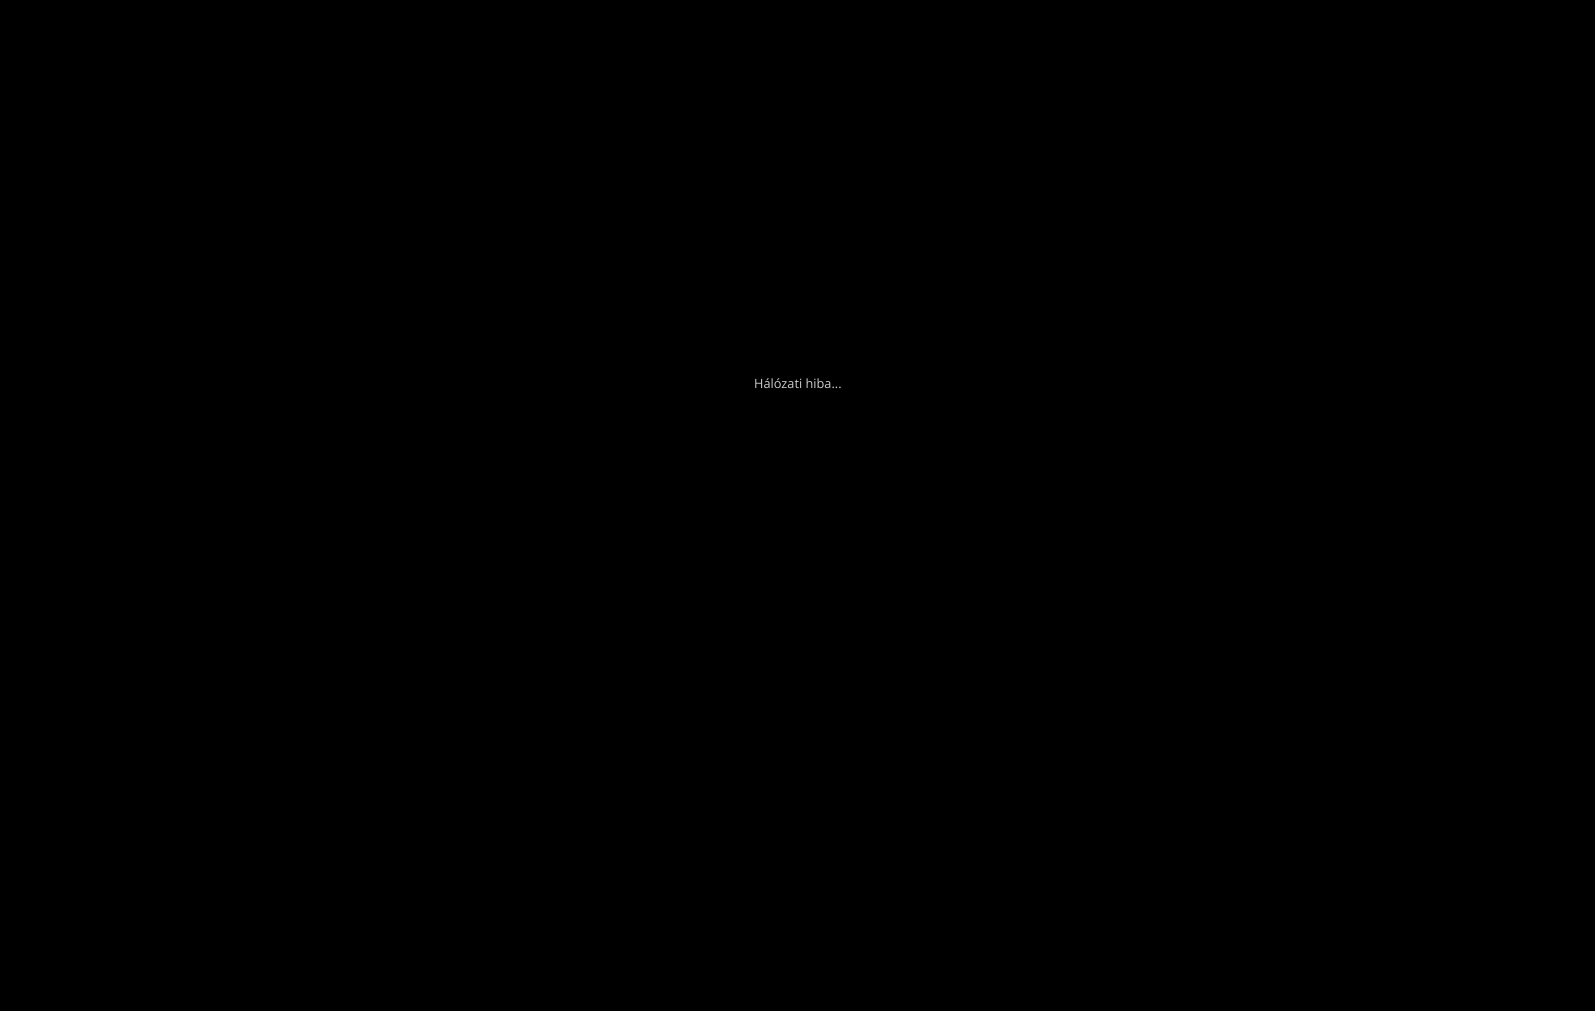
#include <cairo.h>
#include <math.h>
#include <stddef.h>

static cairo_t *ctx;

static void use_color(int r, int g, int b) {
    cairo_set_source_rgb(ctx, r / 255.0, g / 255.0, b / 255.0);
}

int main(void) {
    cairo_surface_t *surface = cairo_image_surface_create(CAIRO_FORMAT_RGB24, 1595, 1011);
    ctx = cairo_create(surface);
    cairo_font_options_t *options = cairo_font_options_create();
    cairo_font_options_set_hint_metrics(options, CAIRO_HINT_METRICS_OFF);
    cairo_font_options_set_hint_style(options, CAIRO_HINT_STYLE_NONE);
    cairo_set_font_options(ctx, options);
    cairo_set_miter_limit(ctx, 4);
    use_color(0, 0, 0);
    cairo_paint(ctx);
    cairo_select_font_face(ctx, "Open Sans", CAIRO_FONT_SLANT_NORMAL, CAIRO_FONT_WEIGHT_NORMAL);
    cairo_set_font_size(ctx, 12.75);
    use_color(204, 204, 204);
    cairo_move_to(ctx, 754, 388);
    cairo_show_text(ctx, "Hálózati hiba...");
    cairo_surface_write_to_png(surface, "result.png");
    cairo_font_options_destroy(options);
    cairo_destroy(ctx);
    cairo_surface_destroy(surface);
    return 0;
}
